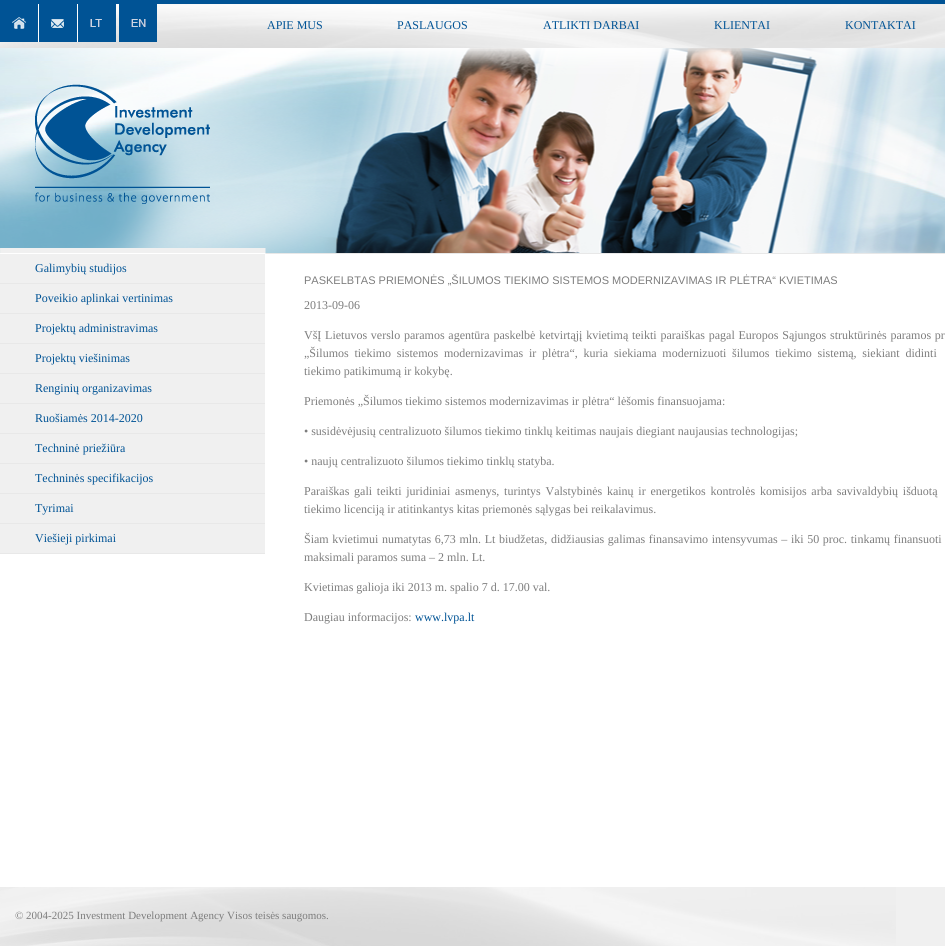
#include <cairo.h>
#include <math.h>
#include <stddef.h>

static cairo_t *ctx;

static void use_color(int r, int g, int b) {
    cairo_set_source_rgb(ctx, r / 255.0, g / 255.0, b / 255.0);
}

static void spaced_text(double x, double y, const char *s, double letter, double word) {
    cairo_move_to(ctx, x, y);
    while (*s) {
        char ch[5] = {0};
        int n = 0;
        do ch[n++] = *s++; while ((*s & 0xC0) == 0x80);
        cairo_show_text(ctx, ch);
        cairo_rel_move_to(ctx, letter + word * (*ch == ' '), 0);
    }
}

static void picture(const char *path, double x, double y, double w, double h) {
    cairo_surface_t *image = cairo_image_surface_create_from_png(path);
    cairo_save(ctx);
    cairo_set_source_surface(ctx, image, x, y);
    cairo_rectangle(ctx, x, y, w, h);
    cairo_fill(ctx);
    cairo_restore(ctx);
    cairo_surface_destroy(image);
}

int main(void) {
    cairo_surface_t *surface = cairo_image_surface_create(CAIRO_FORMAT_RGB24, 945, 946);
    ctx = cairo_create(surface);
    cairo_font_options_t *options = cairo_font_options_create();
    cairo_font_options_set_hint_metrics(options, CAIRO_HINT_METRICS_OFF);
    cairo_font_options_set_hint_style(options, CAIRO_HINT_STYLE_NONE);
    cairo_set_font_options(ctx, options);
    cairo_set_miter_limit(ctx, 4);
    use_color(255, 255, 255);
    cairo_paint(ctx);
    picture("img1.png", 0, 4, 945, 250);
    use_color(0, 83, 149);
    cairo_rectangle(ctx, 0, 0, 945, 4);
    cairo_fill(ctx);
    picture("img2.png", 0, 4, 39, 38);
    picture("img3.png", 39, 4, 39, 38);
    picture("img4.png", 78, 4, 38, 38);
    picture("img5.png", 119, 4, 38, 38);
    cairo_select_font_face(ctx, "Liberation Serif", CAIRO_FONT_SLANT_NORMAL, CAIRO_FONT_WEIGHT_NORMAL);
    cairo_set_font_size(ctx, 12);
    cairo_move_to(ctx, 267, 29);
    cairo_show_text(ctx, "APIE MUS");
    cairo_move_to(ctx, 397, 29);
    cairo_show_text(ctx, "PASLAUGOS");
    cairo_move_to(ctx, 543, 29);
    cairo_show_text(ctx, "ATLIKTI DARBAI");
    cairo_move_to(ctx, 714, 29);
    cairo_show_text(ctx, "KLIENTAI");
    cairo_move_to(ctx, 845, 29);
    cairo_show_text(ctx, "KONTAKTAI");
    picture("img6.png", 35, 84, 175, 120);
    use_color(240, 240, 240);
    cairo_rectangle(ctx, 0, 254, 265, 29);
    cairo_fill(ctx);
    use_color(232, 232, 232);
    cairo_rectangle(ctx, 0, 283, 265, 1);
    cairo_fill(ctx);
    use_color(0, 83, 149);
    cairo_move_to(ctx, 35, 272);
    cairo_show_text(ctx, "Galimybių studijos");
    use_color(240, 240, 240);
    cairo_rectangle(ctx, 0, 284, 265, 29);
    cairo_fill(ctx);
    use_color(232, 232, 232);
    cairo_rectangle(ctx, 0, 313, 265, 1);
    cairo_fill(ctx);
    use_color(0, 83, 149);
    cairo_move_to(ctx, 35, 302);
    cairo_show_text(ctx, "Poveikio aplinkai vertinimas");
    use_color(240, 240, 240);
    cairo_rectangle(ctx, 0, 314, 265, 29);
    cairo_fill(ctx);
    use_color(232, 232, 232);
    cairo_rectangle(ctx, 0, 343, 265, 1);
    cairo_fill(ctx);
    use_color(0, 83, 149);
    cairo_move_to(ctx, 35, 332);
    cairo_show_text(ctx, "Projektų administravimas");
    use_color(240, 240, 240);
    cairo_rectangle(ctx, 0, 344, 265, 29);
    cairo_fill(ctx);
    use_color(232, 232, 232);
    cairo_rectangle(ctx, 0, 373, 265, 1);
    cairo_fill(ctx);
    use_color(0, 83, 149);
    cairo_move_to(ctx, 35, 362);
    cairo_show_text(ctx, "Projektų viešinimas");
    use_color(240, 240, 240);
    cairo_rectangle(ctx, 0, 374, 265, 29);
    cairo_fill(ctx);
    use_color(232, 232, 232);
    cairo_rectangle(ctx, 0, 403, 265, 1);
    cairo_fill(ctx);
    use_color(0, 83, 149);
    cairo_move_to(ctx, 35, 392);
    cairo_show_text(ctx, "Renginių organizavimas");
    use_color(240, 240, 240);
    cairo_rectangle(ctx, 0, 404, 265, 29);
    cairo_fill(ctx);
    use_color(232, 232, 232);
    cairo_rectangle(ctx, 0, 433, 265, 1);
    cairo_fill(ctx);
    use_color(0, 83, 149);
    cairo_move_to(ctx, 35, 422);
    cairo_show_text(ctx, "Ruošiamės 2014-2020");
    use_color(240, 240, 240);
    cairo_rectangle(ctx, 0, 434, 265, 29);
    cairo_fill(ctx);
    use_color(232, 232, 232);
    cairo_rectangle(ctx, 0, 463, 265, 1);
    cairo_fill(ctx);
    use_color(0, 83, 149);
    cairo_move_to(ctx, 35, 452);
    cairo_show_text(ctx, "Techninė priežiūra");
    use_color(240, 240, 240);
    cairo_rectangle(ctx, 0, 464, 265, 29);
    cairo_fill(ctx);
    use_color(232, 232, 232);
    cairo_rectangle(ctx, 0, 493, 265, 1);
    cairo_fill(ctx);
    use_color(0, 83, 149);
    cairo_move_to(ctx, 35, 482);
    cairo_show_text(ctx, "Techninės specifikacijos");
    use_color(240, 240, 240);
    cairo_rectangle(ctx, 0, 494, 265, 29);
    cairo_fill(ctx);
    use_color(232, 232, 232);
    cairo_rectangle(ctx, 0, 523, 265, 1);
    cairo_fill(ctx);
    use_color(0, 83, 149);
    cairo_move_to(ctx, 35, 512);
    cairo_show_text(ctx, "Tyrimai");
    use_color(240, 240, 240);
    cairo_rectangle(ctx, 0, 524, 265, 29);
    cairo_fill(ctx);
    use_color(232, 232, 232);
    cairo_rectangle(ctx, 0, 553, 265, 1);
    cairo_fill(ctx);
    use_color(0, 83, 149);
    cairo_move_to(ctx, 35, 542);
    cairo_show_text(ctx, "Viešieji pirkimai");
    cairo_select_font_face(ctx, "Liberation Sans", CAIRO_FONT_SLANT_NORMAL, CAIRO_FONT_WEIGHT_NORMAL);
    cairo_set_font_size(ctx, 11);
    use_color(125, 125, 125);
    cairo_move_to(ctx, 304, 284);
    cairo_show_text(ctx, "PASKELBTAS PRIEMONĖS „ŠILUMOS TIEKIMO SISTEMOS MODERNIZAVIMAS IR PLĖTRA“ KVIETIMAS");
    cairo_select_font_face(ctx, "Liberation Serif", CAIRO_FONT_SLANT_NORMAL, CAIRO_FONT_WEIGHT_NORMAL);
    cairo_set_font_size(ctx, 12);
    cairo_move_to(ctx, 304, 309);
    cairo_show_text(ctx, "2013-09-06");
    spaced_text(304, 339, "VšĮ Lietuvos verslo paramos agentūra paskelbė ketvirtąjį kvietimą teikti paraiškas pagal Europos Sąjungos struktūrinės paramos pr", 0, 0.75);
    spaced_text(304, 357, "„Šilumos tiekimo sistemos modernizavimas ir plėtra“, kuria siekiama modernizuoti šilumos tiekimo sistemą, siekiant didinti", 0, 2.75);
    cairo_move_to(ctx, 304, 375);
    cairo_show_text(ctx, "tiekimo patikimumą ir kokybę.");
    cairo_move_to(ctx, 304, 405);
    cairo_show_text(ctx, "Priemonės „Šilumos tiekimo sistemos modernizavimas ir plėtra“ lėšomis finansuojama:");
    cairo_move_to(ctx, 304, 435);
    cairo_show_text(ctx, "• susidėvėjusių centralizuoto šilumos tiekimo tinklų keitimas naujais diegiant naujausias technologijas;");
    cairo_move_to(ctx, 304, 465);
    cairo_show_text(ctx, "• naujų centralizuoto šilumos tiekimo tinklų statyba.");
    spaced_text(304, 495, "Paraiškas gali teikti juridiniai asmenys, turintys Valstybinės kainų ir energetikos kontrolės komisijos arba savivaldybių išduotą", 0, 1.75);
    cairo_move_to(ctx, 304, 513);
    cairo_show_text(ctx, "tiekimo licenciją ir atitinkantys kitas priemonės sąlygas bei reikalavimus.");
    spaced_text(304, 543, "Šiam kvietimui numatytas 6,73 mln. Lt biudžetas, didžiausias galimas finansavimo intensyvumas – iki 50 proc. tinkamų finansuoti", 0, 0.6);
    cairo_move_to(ctx, 304, 561);
    cairo_show_text(ctx, "maksimali paramos suma – 2 mln. Lt.");
    cairo_move_to(ctx, 304, 591);
    cairo_show_text(ctx, "Kvietimas galioja iki 2013 m. spalio 7 d. 17.00 val.");
    cairo_move_to(ctx, 304, 621);
    cairo_show_text(ctx, "Daugiau informacijos:");
    use_color(0, 83, 149);
    cairo_move_to(ctx, 415, 621);
    cairo_show_text(ctx, "www.lvpa.lt");
    use_color(240, 240, 240);
    cairo_rectangle(ctx, 896, 887, 49, 59);
    cairo_fill(ctx);
    picture("img7.png", 0, 887, 896, 59);
    cairo_set_font_size(ctx, 11);
    use_color(125, 125, 125);
    cairo_move_to(ctx, 15, 919);
    cairo_show_text(ctx, "© 2004-2025 Investment Development Agency Visos teisės saugomos.");
    cairo_surface_write_to_png(surface, "result.png");
    cairo_font_options_destroy(options);
    cairo_destroy(ctx);
    cairo_surface_destroy(surface);
    return 0;
}
